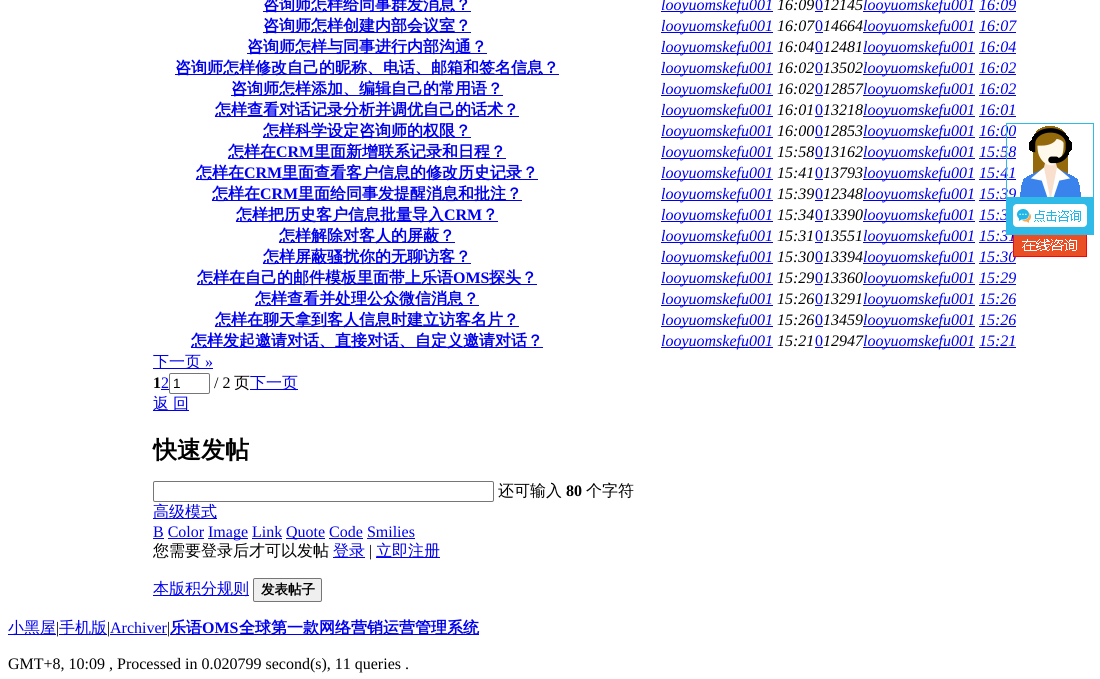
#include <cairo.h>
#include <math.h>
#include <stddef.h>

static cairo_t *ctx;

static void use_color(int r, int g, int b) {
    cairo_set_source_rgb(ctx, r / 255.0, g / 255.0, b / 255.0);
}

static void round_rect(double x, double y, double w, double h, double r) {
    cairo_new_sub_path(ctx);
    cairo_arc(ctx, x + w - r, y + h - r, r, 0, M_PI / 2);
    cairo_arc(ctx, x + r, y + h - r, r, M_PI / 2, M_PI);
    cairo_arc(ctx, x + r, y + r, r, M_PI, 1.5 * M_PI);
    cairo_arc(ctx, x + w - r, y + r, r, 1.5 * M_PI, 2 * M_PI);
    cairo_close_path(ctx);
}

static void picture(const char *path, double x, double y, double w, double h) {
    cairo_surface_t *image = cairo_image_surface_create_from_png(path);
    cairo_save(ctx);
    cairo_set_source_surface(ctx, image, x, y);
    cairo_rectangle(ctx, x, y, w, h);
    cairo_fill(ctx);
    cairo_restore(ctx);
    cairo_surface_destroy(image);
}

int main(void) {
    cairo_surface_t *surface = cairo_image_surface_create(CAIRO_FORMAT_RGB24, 1100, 679);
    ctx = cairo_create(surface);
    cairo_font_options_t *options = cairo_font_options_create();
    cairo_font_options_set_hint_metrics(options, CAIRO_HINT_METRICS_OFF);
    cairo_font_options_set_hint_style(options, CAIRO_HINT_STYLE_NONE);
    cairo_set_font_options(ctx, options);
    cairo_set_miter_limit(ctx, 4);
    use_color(255, 255, 255);
    cairo_paint(ctx);
    use_color(0, 0, 238);
    cairo_rectangle(ctx, 263, 11, 208, 1);
    cairo_fill(ctx);
    cairo_select_font_face(ctx, "WenQuanYi Zen Hei", CAIRO_FONT_SLANT_NORMAL, CAIRO_FONT_WEIGHT_BOLD);
    cairo_set_font_size(ctx, 16);
    cairo_move_to(ctx, 263, 10);
    cairo_show_text(ctx, "咨询师怎样给同事群发消息？");
    cairo_rectangle(ctx, 661, 11, 112, 1);
    cairo_fill(ctx);
    cairo_select_font_face(ctx, "Liberation Serif", CAIRO_FONT_SLANT_ITALIC, CAIRO_FONT_WEIGHT_NORMAL);
    cairo_move_to(ctx, 661, 10);
    cairo_show_text(ctx, "looyuomskefu001");
    use_color(0, 0, 0);
    cairo_move_to(ctx, 777, 10);
    cairo_show_text(ctx, "16:09");
    cairo_select_font_face(ctx, "Liberation Serif", CAIRO_FONT_SLANT_NORMAL, CAIRO_FONT_WEIGHT_NORMAL);
    use_color(0, 0, 238);
    cairo_move_to(ctx, 815, 10);
    cairo_show_text(ctx, "0");
    cairo_rectangle(ctx, 815, 11, 8, 1);
    cairo_fill(ctx);
    cairo_select_font_face(ctx, "Liberation Serif", CAIRO_FONT_SLANT_ITALIC, CAIRO_FONT_WEIGHT_NORMAL);
    use_color(0, 0, 0);
    cairo_move_to(ctx, 823, 10);
    cairo_show_text(ctx, "12145");
    use_color(0, 0, 238);
    cairo_rectangle(ctx, 863, 11, 112, 1);
    cairo_fill(ctx);
    cairo_move_to(ctx, 863, 10);
    cairo_show_text(ctx, "looyuomskefu001 16:09");
    cairo_rectangle(ctx, 979, 11, 37, 1);
    cairo_fill(ctx);
    cairo_rectangle(ctx, 263, 32, 208, 1);
    cairo_fill(ctx);
    cairo_select_font_face(ctx, "WenQuanYi Zen Hei", CAIRO_FONT_SLANT_NORMAL, CAIRO_FONT_WEIGHT_BOLD);
    cairo_move_to(ctx, 263, 31);
    cairo_show_text(ctx, "咨询师怎样创建内部会议室？");
    cairo_rectangle(ctx, 661, 32, 112, 1);
    cairo_fill(ctx);
    cairo_select_font_face(ctx, "Liberation Serif", CAIRO_FONT_SLANT_ITALIC, CAIRO_FONT_WEIGHT_NORMAL);
    cairo_move_to(ctx, 661, 31);
    cairo_show_text(ctx, "looyuomskefu001");
    use_color(0, 0, 0);
    cairo_move_to(ctx, 777, 31);
    cairo_show_text(ctx, "16:07");
    cairo_select_font_face(ctx, "Liberation Serif", CAIRO_FONT_SLANT_NORMAL, CAIRO_FONT_WEIGHT_NORMAL);
    use_color(0, 0, 238);
    cairo_move_to(ctx, 815, 31);
    cairo_show_text(ctx, "0");
    cairo_rectangle(ctx, 815, 32, 8, 1);
    cairo_fill(ctx);
    cairo_select_font_face(ctx, "Liberation Serif", CAIRO_FONT_SLANT_ITALIC, CAIRO_FONT_WEIGHT_NORMAL);
    use_color(0, 0, 0);
    cairo_move_to(ctx, 823, 31);
    cairo_show_text(ctx, "14664");
    use_color(0, 0, 238);
    cairo_rectangle(ctx, 863, 32, 112, 1);
    cairo_fill(ctx);
    cairo_move_to(ctx, 863, 31);
    cairo_show_text(ctx, "looyuomskefu001 16:07");
    cairo_rectangle(ctx, 979, 32, 37, 1);
    cairo_fill(ctx);
    cairo_rectangle(ctx, 247, 53, 240, 1);
    cairo_fill(ctx);
    cairo_select_font_face(ctx, "WenQuanYi Zen Hei", CAIRO_FONT_SLANT_NORMAL, CAIRO_FONT_WEIGHT_BOLD);
    cairo_move_to(ctx, 247, 52);
    cairo_show_text(ctx, "咨询师怎样与同事进行内部沟通？");
    cairo_rectangle(ctx, 661, 53, 112, 1);
    cairo_fill(ctx);
    cairo_select_font_face(ctx, "Liberation Serif", CAIRO_FONT_SLANT_ITALIC, CAIRO_FONT_WEIGHT_NORMAL);
    cairo_move_to(ctx, 661, 52);
    cairo_show_text(ctx, "looyuomskefu001");
    use_color(0, 0, 0);
    cairo_move_to(ctx, 777, 52);
    cairo_show_text(ctx, "16:04");
    cairo_select_font_face(ctx, "Liberation Serif", CAIRO_FONT_SLANT_NORMAL, CAIRO_FONT_WEIGHT_NORMAL);
    use_color(0, 0, 238);
    cairo_move_to(ctx, 815, 52);
    cairo_show_text(ctx, "0");
    cairo_rectangle(ctx, 815, 53, 8, 1);
    cairo_fill(ctx);
    cairo_select_font_face(ctx, "Liberation Serif", CAIRO_FONT_SLANT_ITALIC, CAIRO_FONT_WEIGHT_NORMAL);
    use_color(0, 0, 0);
    cairo_move_to(ctx, 823, 52);
    cairo_show_text(ctx, "12481");
    use_color(0, 0, 238);
    cairo_rectangle(ctx, 863, 53, 112, 1);
    cairo_fill(ctx);
    cairo_move_to(ctx, 863, 52);
    cairo_show_text(ctx, "looyuomskefu001 16:04");
    cairo_rectangle(ctx, 979, 53, 37, 1);
    cairo_fill(ctx);
    cairo_rectangle(ctx, 175, 74, 384, 1);
    cairo_fill(ctx);
    cairo_select_font_face(ctx, "WenQuanYi Zen Hei", CAIRO_FONT_SLANT_NORMAL, CAIRO_FONT_WEIGHT_BOLD);
    cairo_move_to(ctx, 175, 73);
    cairo_show_text(ctx, "咨询师怎样修改自己的昵称、电话、邮箱和签名信息？");
    cairo_rectangle(ctx, 661, 74, 112, 1);
    cairo_fill(ctx);
    cairo_select_font_face(ctx, "Liberation Serif", CAIRO_FONT_SLANT_ITALIC, CAIRO_FONT_WEIGHT_NORMAL);
    cairo_move_to(ctx, 661, 73);
    cairo_show_text(ctx, "looyuomskefu001");
    use_color(0, 0, 0);
    cairo_move_to(ctx, 777, 73);
    cairo_show_text(ctx, "16:02");
    cairo_select_font_face(ctx, "Liberation Serif", CAIRO_FONT_SLANT_NORMAL, CAIRO_FONT_WEIGHT_NORMAL);
    use_color(0, 0, 238);
    cairo_move_to(ctx, 815, 73);
    cairo_show_text(ctx, "0");
    cairo_rectangle(ctx, 815, 74, 8, 1);
    cairo_fill(ctx);
    cairo_select_font_face(ctx, "Liberation Serif", CAIRO_FONT_SLANT_ITALIC, CAIRO_FONT_WEIGHT_NORMAL);
    use_color(0, 0, 0);
    cairo_move_to(ctx, 823, 73);
    cairo_show_text(ctx, "13502");
    use_color(0, 0, 238);
    cairo_rectangle(ctx, 863, 74, 112, 1);
    cairo_fill(ctx);
    cairo_move_to(ctx, 863, 73);
    cairo_show_text(ctx, "looyuomskefu001 16:02");
    cairo_rectangle(ctx, 979, 74, 37, 1);
    cairo_fill(ctx);
    cairo_rectangle(ctx, 231, 95, 272, 1);
    cairo_fill(ctx);
    cairo_select_font_face(ctx, "WenQuanYi Zen Hei", CAIRO_FONT_SLANT_NORMAL, CAIRO_FONT_WEIGHT_BOLD);
    cairo_move_to(ctx, 231, 94);
    cairo_show_text(ctx, "咨询师怎样添加、编辑自己的常用语？");
    cairo_rectangle(ctx, 661, 95, 112, 1);
    cairo_fill(ctx);
    cairo_select_font_face(ctx, "Liberation Serif", CAIRO_FONT_SLANT_ITALIC, CAIRO_FONT_WEIGHT_NORMAL);
    cairo_move_to(ctx, 661, 94);
    cairo_show_text(ctx, "looyuomskefu001");
    use_color(0, 0, 0);
    cairo_move_to(ctx, 777, 94);
    cairo_show_text(ctx, "16:02");
    cairo_select_font_face(ctx, "Liberation Serif", CAIRO_FONT_SLANT_NORMAL, CAIRO_FONT_WEIGHT_NORMAL);
    use_color(0, 0, 238);
    cairo_move_to(ctx, 815, 94);
    cairo_show_text(ctx, "0");
    cairo_rectangle(ctx, 815, 95, 8, 1);
    cairo_fill(ctx);
    cairo_select_font_face(ctx, "Liberation Serif", CAIRO_FONT_SLANT_ITALIC, CAIRO_FONT_WEIGHT_NORMAL);
    use_color(0, 0, 0);
    cairo_move_to(ctx, 823, 94);
    cairo_show_text(ctx, "12857");
    use_color(0, 0, 238);
    cairo_rectangle(ctx, 863, 95, 112, 1);
    cairo_fill(ctx);
    cairo_move_to(ctx, 863, 94);
    cairo_show_text(ctx, "looyuomskefu001 16:02");
    cairo_rectangle(ctx, 979, 95, 37, 1);
    cairo_fill(ctx);
    cairo_rectangle(ctx, 215, 116, 304, 1);
    cairo_fill(ctx);
    cairo_select_font_face(ctx, "WenQuanYi Zen Hei", CAIRO_FONT_SLANT_NORMAL, CAIRO_FONT_WEIGHT_BOLD);
    cairo_move_to(ctx, 215, 115);
    cairo_show_text(ctx, "怎样查看对话记录分析并调优自己的话术？");
    cairo_rectangle(ctx, 661, 116, 112, 1);
    cairo_fill(ctx);
    cairo_select_font_face(ctx, "Liberation Serif", CAIRO_FONT_SLANT_ITALIC, CAIRO_FONT_WEIGHT_NORMAL);
    cairo_move_to(ctx, 661, 115);
    cairo_show_text(ctx, "looyuomskefu001");
    use_color(0, 0, 0);
    cairo_move_to(ctx, 777, 115);
    cairo_show_text(ctx, "16:01");
    cairo_select_font_face(ctx, "Liberation Serif", CAIRO_FONT_SLANT_NORMAL, CAIRO_FONT_WEIGHT_NORMAL);
    use_color(0, 0, 238);
    cairo_move_to(ctx, 815, 115);
    cairo_show_text(ctx, "0");
    cairo_rectangle(ctx, 815, 116, 8, 1);
    cairo_fill(ctx);
    cairo_select_font_face(ctx, "Liberation Serif", CAIRO_FONT_SLANT_ITALIC, CAIRO_FONT_WEIGHT_NORMAL);
    use_color(0, 0, 0);
    cairo_move_to(ctx, 823, 115);
    cairo_show_text(ctx, "13218");
    use_color(0, 0, 238);
    cairo_rectangle(ctx, 863, 116, 112, 1);
    cairo_fill(ctx);
    cairo_move_to(ctx, 863, 115);
    cairo_show_text(ctx, "looyuomskefu001 16:01");
    cairo_rectangle(ctx, 979, 116, 37, 1);
    cairo_fill(ctx);
    cairo_rectangle(ctx, 263, 137, 208, 1);
    cairo_fill(ctx);
    cairo_select_font_face(ctx, "WenQuanYi Zen Hei", CAIRO_FONT_SLANT_NORMAL, CAIRO_FONT_WEIGHT_BOLD);
    cairo_move_to(ctx, 263, 136);
    cairo_show_text(ctx, "怎样科学设定咨询师的权限？");
    cairo_rectangle(ctx, 661, 137, 112, 1);
    cairo_fill(ctx);
    cairo_select_font_face(ctx, "Liberation Serif", CAIRO_FONT_SLANT_ITALIC, CAIRO_FONT_WEIGHT_NORMAL);
    cairo_move_to(ctx, 661, 136);
    cairo_show_text(ctx, "looyuomskefu001");
    use_color(0, 0, 0);
    cairo_move_to(ctx, 777, 136);
    cairo_show_text(ctx, "16:00");
    cairo_select_font_face(ctx, "Liberation Serif", CAIRO_FONT_SLANT_NORMAL, CAIRO_FONT_WEIGHT_NORMAL);
    use_color(0, 0, 238);
    cairo_move_to(ctx, 815, 136);
    cairo_show_text(ctx, "0");
    cairo_rectangle(ctx, 815, 137, 8, 1);
    cairo_fill(ctx);
    cairo_select_font_face(ctx, "Liberation Serif", CAIRO_FONT_SLANT_ITALIC, CAIRO_FONT_WEIGHT_NORMAL);
    use_color(0, 0, 0);
    cairo_move_to(ctx, 823, 136);
    cairo_show_text(ctx, "12853");
    use_color(0, 0, 238);
    cairo_rectangle(ctx, 863, 137, 112, 1);
    cairo_fill(ctx);
    cairo_move_to(ctx, 863, 136);
    cairo_show_text(ctx, "looyuomskefu001 16:00");
    cairo_rectangle(ctx, 979, 137, 37, 1);
    cairo_fill(ctx);
    cairo_rectangle(ctx, 228, 158, 278, 1);
    cairo_fill(ctx);
    cairo_select_font_face(ctx, "WenQuanYi Zen Hei", CAIRO_FONT_SLANT_NORMAL, CAIRO_FONT_WEIGHT_BOLD);
    cairo_move_to(ctx, 228, 157);
    cairo_show_text(ctx, "怎样在");
    cairo_select_font_face(ctx, "Liberation Serif", CAIRO_FONT_SLANT_NORMAL, CAIRO_FONT_WEIGHT_BOLD);
    cairo_move_to(ctx, 276, 157);
    cairo_show_text(ctx, "CRM");
    cairo_select_font_face(ctx, "WenQuanYi Zen Hei", CAIRO_FONT_SLANT_NORMAL, CAIRO_FONT_WEIGHT_BOLD);
    cairo_move_to(ctx, 314, 157);
    cairo_show_text(ctx, "里面新增联系记录和日程？");
    cairo_rectangle(ctx, 661, 158, 112, 1);
    cairo_fill(ctx);
    cairo_select_font_face(ctx, "Liberation Serif", CAIRO_FONT_SLANT_ITALIC, CAIRO_FONT_WEIGHT_NORMAL);
    cairo_move_to(ctx, 661, 157);
    cairo_show_text(ctx, "looyuomskefu001");
    use_color(0, 0, 0);
    cairo_move_to(ctx, 777, 157);
    cairo_show_text(ctx, "15:58");
    cairo_select_font_face(ctx, "Liberation Serif", CAIRO_FONT_SLANT_NORMAL, CAIRO_FONT_WEIGHT_NORMAL);
    use_color(0, 0, 238);
    cairo_move_to(ctx, 815, 157);
    cairo_show_text(ctx, "0");
    cairo_rectangle(ctx, 815, 158, 8, 1);
    cairo_fill(ctx);
    cairo_select_font_face(ctx, "Liberation Serif", CAIRO_FONT_SLANT_ITALIC, CAIRO_FONT_WEIGHT_NORMAL);
    use_color(0, 0, 0);
    cairo_move_to(ctx, 823, 157);
    cairo_show_text(ctx, "13162");
    use_color(0, 0, 238);
    cairo_rectangle(ctx, 863, 158, 112, 1);
    cairo_fill(ctx);
    cairo_move_to(ctx, 863, 157);
    cairo_show_text(ctx, "looyuomskefu001 15:58");
    cairo_rectangle(ctx, 979, 158, 37, 1);
    cairo_fill(ctx);
    cairo_rectangle(ctx, 196, 179, 342, 1);
    cairo_fill(ctx);
    cairo_select_font_face(ctx, "WenQuanYi Zen Hei", CAIRO_FONT_SLANT_NORMAL, CAIRO_FONT_WEIGHT_BOLD);
    cairo_move_to(ctx, 196, 178);
    cairo_show_text(ctx, "怎样在");
    cairo_select_font_face(ctx, "Liberation Serif", CAIRO_FONT_SLANT_NORMAL, CAIRO_FONT_WEIGHT_BOLD);
    cairo_move_to(ctx, 244, 178);
    cairo_show_text(ctx, "CRM");
    cairo_select_font_face(ctx, "WenQuanYi Zen Hei", CAIRO_FONT_SLANT_NORMAL, CAIRO_FONT_WEIGHT_BOLD);
    cairo_move_to(ctx, 282, 178);
    cairo_show_text(ctx, "里面查看客户信息的修改历史记录？");
    cairo_rectangle(ctx, 661, 179, 112, 1);
    cairo_fill(ctx);
    cairo_select_font_face(ctx, "Liberation Serif", CAIRO_FONT_SLANT_ITALIC, CAIRO_FONT_WEIGHT_NORMAL);
    cairo_move_to(ctx, 661, 178);
    cairo_show_text(ctx, "looyuomskefu001");
    use_color(0, 0, 0);
    cairo_move_to(ctx, 777, 178);
    cairo_show_text(ctx, "15:41");
    cairo_select_font_face(ctx, "Liberation Serif", CAIRO_FONT_SLANT_NORMAL, CAIRO_FONT_WEIGHT_NORMAL);
    use_color(0, 0, 238);
    cairo_move_to(ctx, 815, 178);
    cairo_show_text(ctx, "0");
    cairo_rectangle(ctx, 815, 179, 8, 1);
    cairo_fill(ctx);
    cairo_select_font_face(ctx, "Liberation Serif", CAIRO_FONT_SLANT_ITALIC, CAIRO_FONT_WEIGHT_NORMAL);
    use_color(0, 0, 0);
    cairo_move_to(ctx, 823, 178);
    cairo_show_text(ctx, "13793");
    use_color(0, 0, 238);
    cairo_rectangle(ctx, 863, 179, 112, 1);
    cairo_fill(ctx);
    cairo_move_to(ctx, 863, 178);
    cairo_show_text(ctx, "looyuomskefu001 15:41");
    cairo_rectangle(ctx, 979, 179, 37, 1);
    cairo_fill(ctx);
    cairo_rectangle(ctx, 212, 200, 310, 1);
    cairo_fill(ctx);
    cairo_select_font_face(ctx, "WenQuanYi Zen Hei", CAIRO_FONT_SLANT_NORMAL, CAIRO_FONT_WEIGHT_BOLD);
    cairo_move_to(ctx, 212, 199);
    cairo_show_text(ctx, "怎样在");
    cairo_select_font_face(ctx, "Liberation Serif", CAIRO_FONT_SLANT_NORMAL, CAIRO_FONT_WEIGHT_BOLD);
    cairo_move_to(ctx, 260, 199);
    cairo_show_text(ctx, "CRM");
    cairo_select_font_face(ctx, "WenQuanYi Zen Hei", CAIRO_FONT_SLANT_NORMAL, CAIRO_FONT_WEIGHT_BOLD);
    cairo_move_to(ctx, 298, 199);
    cairo_show_text(ctx, "里面给同事发提醒消息和批注？");
    cairo_rectangle(ctx, 661, 200, 112, 1);
    cairo_fill(ctx);
    cairo_select_font_face(ctx, "Liberation Serif", CAIRO_FONT_SLANT_ITALIC, CAIRO_FONT_WEIGHT_NORMAL);
    cairo_move_to(ctx, 661, 199);
    cairo_show_text(ctx, "looyuomskefu001");
    use_color(0, 0, 0);
    cairo_move_to(ctx, 777, 199);
    cairo_show_text(ctx, "15:39");
    cairo_select_font_face(ctx, "Liberation Serif", CAIRO_FONT_SLANT_NORMAL, CAIRO_FONT_WEIGHT_NORMAL);
    use_color(0, 0, 238);
    cairo_move_to(ctx, 815, 199);
    cairo_show_text(ctx, "0");
    cairo_rectangle(ctx, 815, 200, 8, 1);
    cairo_fill(ctx);
    cairo_select_font_face(ctx, "Liberation Serif", CAIRO_FONT_SLANT_ITALIC, CAIRO_FONT_WEIGHT_NORMAL);
    use_color(0, 0, 0);
    cairo_move_to(ctx, 823, 199);
    cairo_show_text(ctx, "12348");
    use_color(0, 0, 238);
    cairo_rectangle(ctx, 863, 200, 112, 1);
    cairo_fill(ctx);
    cairo_move_to(ctx, 863, 199);
    cairo_show_text(ctx, "looyuomskefu001 15:39");
    cairo_rectangle(ctx, 979, 200, 27, 1);
    cairo_fill(ctx);
    cairo_rectangle(ctx, 236, 221, 262, 1);
    cairo_fill(ctx);
    cairo_select_font_face(ctx, "WenQuanYi Zen Hei", CAIRO_FONT_SLANT_NORMAL, CAIRO_FONT_WEIGHT_BOLD);
    cairo_move_to(ctx, 236, 220);
    cairo_show_text(ctx, "怎样把历史客户信息批量导入");
    cairo_select_font_face(ctx, "Liberation Serif", CAIRO_FONT_SLANT_NORMAL, CAIRO_FONT_WEIGHT_BOLD);
    cairo_move_to(ctx, 444, 220);
    cairo_show_text(ctx, "CRM");
    cairo_select_font_face(ctx, "WenQuanYi Zen Hei", CAIRO_FONT_SLANT_NORMAL, CAIRO_FONT_WEIGHT_BOLD);
    cairo_move_to(ctx, 482, 220);
    cairo_show_text(ctx, "？");
    cairo_rectangle(ctx, 661, 221, 112, 1);
    cairo_fill(ctx);
    cairo_select_font_face(ctx, "Liberation Serif", CAIRO_FONT_SLANT_ITALIC, CAIRO_FONT_WEIGHT_NORMAL);
    cairo_move_to(ctx, 661, 220);
    cairo_show_text(ctx, "looyuomskefu001");
    use_color(0, 0, 0);
    cairo_move_to(ctx, 777, 220);
    cairo_show_text(ctx, "15:34");
    cairo_select_font_face(ctx, "Liberation Serif", CAIRO_FONT_SLANT_NORMAL, CAIRO_FONT_WEIGHT_NORMAL);
    use_color(0, 0, 238);
    cairo_move_to(ctx, 815, 220);
    cairo_show_text(ctx, "0");
    cairo_rectangle(ctx, 815, 221, 8, 1);
    cairo_fill(ctx);
    cairo_select_font_face(ctx, "Liberation Serif", CAIRO_FONT_SLANT_ITALIC, CAIRO_FONT_WEIGHT_NORMAL);
    use_color(0, 0, 0);
    cairo_move_to(ctx, 823, 220);
    cairo_show_text(ctx, "13390");
    use_color(0, 0, 238);
    cairo_rectangle(ctx, 863, 221, 112, 1);
    cairo_fill(ctx);
    cairo_move_to(ctx, 863, 220);
    cairo_show_text(ctx, "looyuomskefu001 15:3");
    cairo_rectangle(ctx, 979, 221, 27, 1);
    cairo_fill(ctx);
    cairo_rectangle(ctx, 279, 242, 176, 1);
    cairo_fill(ctx);
    cairo_select_font_face(ctx, "WenQuanYi Zen Hei", CAIRO_FONT_SLANT_NORMAL, CAIRO_FONT_WEIGHT_BOLD);
    cairo_move_to(ctx, 279, 241);
    cairo_show_text(ctx, "怎样解除对客人的屏蔽？");
    cairo_rectangle(ctx, 661, 242, 112, 1);
    cairo_fill(ctx);
    cairo_select_font_face(ctx, "Liberation Serif", CAIRO_FONT_SLANT_ITALIC, CAIRO_FONT_WEIGHT_NORMAL);
    cairo_move_to(ctx, 661, 241);
    cairo_show_text(ctx, "looyuomskefu001");
    use_color(0, 0, 0);
    cairo_move_to(ctx, 777, 241);
    cairo_show_text(ctx, "15:31");
    cairo_select_font_face(ctx, "Liberation Serif", CAIRO_FONT_SLANT_NORMAL, CAIRO_FONT_WEIGHT_NORMAL);
    use_color(0, 0, 238);
    cairo_move_to(ctx, 815, 241);
    cairo_show_text(ctx, "0");
    cairo_rectangle(ctx, 815, 242, 8, 1);
    cairo_fill(ctx);
    cairo_select_font_face(ctx, "Liberation Serif", CAIRO_FONT_SLANT_ITALIC, CAIRO_FONT_WEIGHT_NORMAL);
    use_color(0, 0, 0);
    cairo_move_to(ctx, 823, 241);
    cairo_show_text(ctx, "13551");
    use_color(0, 0, 238);
    cairo_rectangle(ctx, 863, 242, 112, 1);
    cairo_fill(ctx);
    cairo_move_to(ctx, 863, 241);
    cairo_show_text(ctx, "looyuomskefu001 15:31");
    cairo_rectangle(ctx, 979, 242, 37, 1);
    cairo_fill(ctx);
    cairo_rectangle(ctx, 263, 263, 208, 1);
    cairo_fill(ctx);
    cairo_select_font_face(ctx, "WenQuanYi Zen Hei", CAIRO_FONT_SLANT_NORMAL, CAIRO_FONT_WEIGHT_BOLD);
    cairo_move_to(ctx, 263, 262);
    cairo_show_text(ctx, "怎样屏蔽骚扰你的无聊访客？");
    cairo_rectangle(ctx, 661, 263, 112, 1);
    cairo_fill(ctx);
    cairo_select_font_face(ctx, "Liberation Serif", CAIRO_FONT_SLANT_ITALIC, CAIRO_FONT_WEIGHT_NORMAL);
    cairo_move_to(ctx, 661, 262);
    cairo_show_text(ctx, "looyuomskefu001");
    use_color(0, 0, 0);
    cairo_move_to(ctx, 777, 262);
    cairo_show_text(ctx, "15:30");
    cairo_select_font_face(ctx, "Liberation Serif", CAIRO_FONT_SLANT_NORMAL, CAIRO_FONT_WEIGHT_NORMAL);
    use_color(0, 0, 238);
    cairo_move_to(ctx, 815, 262);
    cairo_show_text(ctx, "0");
    cairo_rectangle(ctx, 815, 263, 8, 1);
    cairo_fill(ctx);
    cairo_select_font_face(ctx, "Liberation Serif", CAIRO_FONT_SLANT_ITALIC, CAIRO_FONT_WEIGHT_NORMAL);
    use_color(0, 0, 0);
    cairo_move_to(ctx, 823, 262);
    cairo_show_text(ctx, "13394");
    use_color(0, 0, 238);
    cairo_rectangle(ctx, 863, 263, 112, 1);
    cairo_fill(ctx);
    cairo_move_to(ctx, 863, 262);
    cairo_show_text(ctx, "looyuomskefu001 15:30");
    cairo_rectangle(ctx, 979, 263, 37, 1);
    cairo_fill(ctx);
    cairo_rectangle(ctx, 197, 284, 340, 1);
    cairo_fill(ctx);
    cairo_select_font_face(ctx, "WenQuanYi Zen Hei", CAIRO_FONT_SLANT_NORMAL, CAIRO_FONT_WEIGHT_BOLD);
    cairo_move_to(ctx, 197, 283);
    cairo_show_text(ctx, "怎样在自己的邮件模板里面带上乐语");
    cairo_select_font_face(ctx, "Liberation Serif", CAIRO_FONT_SLANT_NORMAL, CAIRO_FONT_WEIGHT_BOLD);
    cairo_move_to(ctx, 453, 283);
    cairo_show_text(ctx, "OMS");
    cairo_select_font_face(ctx, "WenQuanYi Zen Hei", CAIRO_FONT_SLANT_NORMAL, CAIRO_FONT_WEIGHT_BOLD);
    cairo_move_to(ctx, 489, 283);
    cairo_show_text(ctx, "探头？");
    cairo_rectangle(ctx, 661, 284, 112, 1);
    cairo_fill(ctx);
    cairo_select_font_face(ctx, "Liberation Serif", CAIRO_FONT_SLANT_ITALIC, CAIRO_FONT_WEIGHT_NORMAL);
    cairo_move_to(ctx, 661, 283);
    cairo_show_text(ctx, "looyuomskefu001");
    use_color(0, 0, 0);
    cairo_move_to(ctx, 777, 283);
    cairo_show_text(ctx, "15:29");
    cairo_select_font_face(ctx, "Liberation Serif", CAIRO_FONT_SLANT_NORMAL, CAIRO_FONT_WEIGHT_NORMAL);
    use_color(0, 0, 238);
    cairo_move_to(ctx, 815, 283);
    cairo_show_text(ctx, "0");
    cairo_rectangle(ctx, 815, 284, 8, 1);
    cairo_fill(ctx);
    cairo_select_font_face(ctx, "Liberation Serif", CAIRO_FONT_SLANT_ITALIC, CAIRO_FONT_WEIGHT_NORMAL);
    use_color(0, 0, 0);
    cairo_move_to(ctx, 823, 283);
    cairo_show_text(ctx, "13360");
    use_color(0, 0, 238);
    cairo_rectangle(ctx, 863, 284, 112, 1);
    cairo_fill(ctx);
    cairo_move_to(ctx, 863, 283);
    cairo_show_text(ctx, "looyuomskefu001 15:29");
    cairo_rectangle(ctx, 979, 284, 37, 1);
    cairo_fill(ctx);
    cairo_rectangle(ctx, 255, 305, 224, 1);
    cairo_fill(ctx);
    cairo_select_font_face(ctx, "WenQuanYi Zen Hei", CAIRO_FONT_SLANT_NORMAL, CAIRO_FONT_WEIGHT_BOLD);
    cairo_move_to(ctx, 255, 304);
    cairo_show_text(ctx, "怎样查看并处理公众微信消息？");
    cairo_rectangle(ctx, 661, 305, 112, 1);
    cairo_fill(ctx);
    cairo_select_font_face(ctx, "Liberation Serif", CAIRO_FONT_SLANT_ITALIC, CAIRO_FONT_WEIGHT_NORMAL);
    cairo_move_to(ctx, 661, 304);
    cairo_show_text(ctx, "looyuomskefu001");
    use_color(0, 0, 0);
    cairo_move_to(ctx, 777, 304);
    cairo_show_text(ctx, "15:26");
    cairo_select_font_face(ctx, "Liberation Serif", CAIRO_FONT_SLANT_NORMAL, CAIRO_FONT_WEIGHT_NORMAL);
    use_color(0, 0, 238);
    cairo_move_to(ctx, 815, 304);
    cairo_show_text(ctx, "0");
    cairo_rectangle(ctx, 815, 305, 8, 1);
    cairo_fill(ctx);
    cairo_select_font_face(ctx, "Liberation Serif", CAIRO_FONT_SLANT_ITALIC, CAIRO_FONT_WEIGHT_NORMAL);
    use_color(0, 0, 0);
    cairo_move_to(ctx, 823, 304);
    cairo_show_text(ctx, "13291");
    use_color(0, 0, 238);
    cairo_rectangle(ctx, 863, 305, 112, 1);
    cairo_fill(ctx);
    cairo_move_to(ctx, 863, 304);
    cairo_show_text(ctx, "looyuomskefu001 15:26");
    cairo_rectangle(ctx, 979, 305, 37, 1);
    cairo_fill(ctx);
    cairo_rectangle(ctx, 215, 326, 304, 1);
    cairo_fill(ctx);
    cairo_select_font_face(ctx, "WenQuanYi Zen Hei", CAIRO_FONT_SLANT_NORMAL, CAIRO_FONT_WEIGHT_BOLD);
    cairo_move_to(ctx, 215, 325);
    cairo_show_text(ctx, "怎样在聊天拿到客人信息时建立访客名片？");
    cairo_rectangle(ctx, 661, 326, 112, 1);
    cairo_fill(ctx);
    cairo_select_font_face(ctx, "Liberation Serif", CAIRO_FONT_SLANT_ITALIC, CAIRO_FONT_WEIGHT_NORMAL);
    cairo_move_to(ctx, 661, 325);
    cairo_show_text(ctx, "looyuomskefu001");
    use_color(0, 0, 0);
    cairo_move_to(ctx, 777, 325);
    cairo_show_text(ctx, "15:26");
    cairo_select_font_face(ctx, "Liberation Serif", CAIRO_FONT_SLANT_NORMAL, CAIRO_FONT_WEIGHT_NORMAL);
    use_color(0, 0, 238);
    cairo_move_to(ctx, 815, 325);
    cairo_show_text(ctx, "0");
    cairo_rectangle(ctx, 815, 326, 8, 1);
    cairo_fill(ctx);
    cairo_select_font_face(ctx, "Liberation Serif", CAIRO_FONT_SLANT_ITALIC, CAIRO_FONT_WEIGHT_NORMAL);
    use_color(0, 0, 0);
    cairo_move_to(ctx, 823, 325);
    cairo_show_text(ctx, "13459");
    use_color(0, 0, 238);
    cairo_rectangle(ctx, 863, 326, 112, 1);
    cairo_fill(ctx);
    cairo_move_to(ctx, 863, 325);
    cairo_show_text(ctx, "looyuomskefu001 15:26");
    cairo_rectangle(ctx, 979, 326, 37, 1);
    cairo_fill(ctx);
    cairo_rectangle(ctx, 191, 347, 352, 1);
    cairo_fill(ctx);
    cairo_select_font_face(ctx, "WenQuanYi Zen Hei", CAIRO_FONT_SLANT_NORMAL, CAIRO_FONT_WEIGHT_BOLD);
    cairo_move_to(ctx, 191, 346);
    cairo_show_text(ctx, "怎样发起邀请对话、直接对话、自定义邀请对话？");
    cairo_rectangle(ctx, 661, 347, 112, 1);
    cairo_fill(ctx);
    cairo_select_font_face(ctx, "Liberation Serif", CAIRO_FONT_SLANT_ITALIC, CAIRO_FONT_WEIGHT_NORMAL);
    cairo_move_to(ctx, 661, 346);
    cairo_show_text(ctx, "looyuomskefu001");
    use_color(0, 0, 0);
    cairo_move_to(ctx, 777, 346);
    cairo_show_text(ctx, "15:21");
    cairo_select_font_face(ctx, "Liberation Serif", CAIRO_FONT_SLANT_NORMAL, CAIRO_FONT_WEIGHT_NORMAL);
    use_color(0, 0, 238);
    cairo_move_to(ctx, 815, 346);
    cairo_show_text(ctx, "0");
    cairo_rectangle(ctx, 815, 347, 8, 1);
    cairo_fill(ctx);
    cairo_select_font_face(ctx, "Liberation Serif", CAIRO_FONT_SLANT_ITALIC, CAIRO_FONT_WEIGHT_NORMAL);
    use_color(0, 0, 0);
    cairo_move_to(ctx, 823, 346);
    cairo_show_text(ctx, "12947");
    use_color(0, 0, 238);
    cairo_rectangle(ctx, 863, 347, 112, 1);
    cairo_fill(ctx);
    cairo_move_to(ctx, 863, 346);
    cairo_show_text(ctx, "looyuomskefu001 15:21");
    cairo_rectangle(ctx, 979, 347, 37, 1);
    cairo_fill(ctx);
    cairo_rectangle(ctx, 153, 368, 60, 1);
    cairo_fill(ctx);
    cairo_select_font_face(ctx, "WenQuanYi Zen Hei Medium", CAIRO_FONT_SLANT_NORMAL, CAIRO_FONT_WEIGHT_NORMAL);
    cairo_move_to(ctx, 153, 367);
    cairo_show_text(ctx, "下一页");
    cairo_select_font_face(ctx, "Liberation Serif", CAIRO_FONT_SLANT_NORMAL, CAIRO_FONT_WEIGHT_NORMAL);
    cairo_move_to(ctx, 205, 367);
    cairo_show_text(ctx, "»");
    cairo_select_font_face(ctx, "Liberation Serif", CAIRO_FONT_SLANT_NORMAL, CAIRO_FONT_WEIGHT_BOLD);
    use_color(0, 0, 0);
    cairo_move_to(ctx, 153, 388);
    cairo_show_text(ctx, "1");
    cairo_select_font_face(ctx, "Liberation Serif", CAIRO_FONT_SLANT_NORMAL, CAIRO_FONT_WEIGHT_NORMAL);
    use_color(0, 0, 238);
    cairo_move_to(ctx, 161, 388);
    cairo_show_text(ctx, "2");
    cairo_rectangle(ctx, 161, 389, 8, 1);
    cairo_fill(ctx);
    round_rect(169.5, 373.5, 40, 20, 1.5);
    use_color(118, 118, 118);
    cairo_set_line_width(ctx, 1);
    cairo_stroke(ctx);
    cairo_select_font_face(ctx, "Liberation Sans", CAIRO_FONT_SLANT_NORMAL, CAIRO_FONT_WEIGHT_NORMAL);
    cairo_set_font_size(ctx, 13.5);
    use_color(0, 0, 0);
    cairo_move_to(ctx, 173, 388);
    cairo_show_text(ctx, "1");
    cairo_select_font_face(ctx, "Liberation Serif", CAIRO_FONT_SLANT_NORMAL, CAIRO_FONT_WEIGHT_NORMAL);
    cairo_set_font_size(ctx, 16);
    cairo_move_to(ctx, 214, 388);
    cairo_show_text(ctx, "/ 2");
    cairo_select_font_face(ctx, "WenQuanYi Zen Hei Medium", CAIRO_FONT_SLANT_NORMAL, CAIRO_FONT_WEIGHT_NORMAL);
    cairo_move_to(ctx, 234, 388);
    cairo_show_text(ctx, "页");
    use_color(0, 0, 238);
    cairo_rectangle(ctx, 250, 389, 48, 1);
    cairo_fill(ctx);
    cairo_move_to(ctx, 250, 388);
    cairo_show_text(ctx, "下一页");
    cairo_rectangle(ctx, 153, 410, 36, 1);
    cairo_fill(ctx);
    cairo_move_to(ctx, 153, 409);
    cairo_show_text(ctx, "返");
    cairo_move_to(ctx, 173, 409);
    cairo_show_text(ctx, "回");
    cairo_select_font_face(ctx, "WenQuanYi Zen Hei", CAIRO_FONT_SLANT_NORMAL, CAIRO_FONT_WEIGHT_BOLD);
    cairo_set_font_size(ctx, 24);
    use_color(0, 0, 0);
    cairo_move_to(ctx, 153, 458);
    cairo_show_text(ctx, "快速发帖");
    round_rect(153.5, 481.5, 340, 20, 1.5);
    use_color(118, 118, 118);
    cairo_stroke(ctx);
    cairo_select_font_face(ctx, "WenQuanYi Zen Hei Medium", CAIRO_FONT_SLANT_NORMAL, CAIRO_FONT_WEIGHT_NORMAL);
    cairo_set_font_size(ctx, 16);
    use_color(0, 0, 0);
    cairo_move_to(ctx, 498, 496);
    cairo_show_text(ctx, "还可输入");
    cairo_select_font_face(ctx, "Liberation Serif", CAIRO_FONT_SLANT_NORMAL, CAIRO_FONT_WEIGHT_BOLD);
    cairo_move_to(ctx, 566, 496);
    cairo_show_text(ctx, "80");
    cairo_select_font_face(ctx, "WenQuanYi Zen Hei Medium", CAIRO_FONT_SLANT_NORMAL, CAIRO_FONT_WEIGHT_NORMAL);
    cairo_move_to(ctx, 586, 496);
    cairo_show_text(ctx, "个字符");
    use_color(0, 0, 238);
    cairo_rectangle(ctx, 153, 518, 64, 1);
    cairo_fill(ctx);
    cairo_move_to(ctx, 153, 517);
    cairo_show_text(ctx, "高级模式");
    cairo_select_font_face(ctx, "Liberation Serif", CAIRO_FONT_SLANT_NORMAL, CAIRO_FONT_WEIGHT_NORMAL);
    cairo_move_to(ctx, 153, 537);
    cairo_show_text(ctx, "B Color");
    cairo_rectangle(ctx, 153, 538, 11, 1);
    cairo_fill(ctx);
    cairo_rectangle(ctx, 208, 538, 40, 1);
    cairo_fill(ctx);
    cairo_move_to(ctx, 208, 537);
    cairo_show_text(ctx, "Image Link");
    cairo_rectangle(ctx, 286, 538, 39, 1);
    cairo_fill(ctx);
    cairo_move_to(ctx, 286, 537);
    cairo_show_text(ctx, "Quote Code Smilies");
    cairo_rectangle(ctx, 168, 538, 36, 1);
    cairo_fill(ctx);
    cairo_rectangle(ctx, 252, 538, 30, 1);
    cairo_fill(ctx);
    cairo_rectangle(ctx, 329, 538, 34, 1);
    cairo_fill(ctx);
    cairo_rectangle(ctx, 367, 538, 48, 1);
    cairo_fill(ctx);
    cairo_select_font_face(ctx, "WenQuanYi Zen Hei Medium", CAIRO_FONT_SLANT_NORMAL, CAIRO_FONT_WEIGHT_NORMAL);
    use_color(0, 0, 0);
    cairo_move_to(ctx, 153, 556);
    cairo_show_text(ctx, "您需要登录后才可以发帖");
    use_color(0, 0, 238);
    cairo_rectangle(ctx, 333, 557, 32, 1);
    cairo_fill(ctx);
    cairo_move_to(ctx, 333, 556);
    cairo_show_text(ctx, "登录");
    cairo_select_font_face(ctx, "Liberation Serif", CAIRO_FONT_SLANT_NORMAL, CAIRO_FONT_WEIGHT_NORMAL);
    use_color(0, 0, 0);
    cairo_move_to(ctx, 369, 556);
    cairo_show_text(ctx, "|");
    use_color(0, 0, 238);
    cairo_rectangle(ctx, 376, 557, 64, 1);
    cairo_fill(ctx);
    cairo_select_font_face(ctx, "WenQuanYi Zen Hei Medium", CAIRO_FONT_SLANT_NORMAL, CAIRO_FONT_WEIGHT_NORMAL);
    cairo_move_to(ctx, 376, 556);
    cairo_show_text(ctx, "立即注册");
    cairo_rectangle(ctx, 153, 595, 96, 1);
    cairo_fill(ctx);
    cairo_move_to(ctx, 153, 594);
    cairo_show_text(ctx, "本版积分规则");
    use_color(239, 239, 239);
    round_rect(253.5, 578.5, 68, 23, 1.5);
    cairo_fill_preserve(ctx);
    use_color(118, 118, 118);
    cairo_stroke(ctx);
    cairo_select_font_face(ctx, "WenQuanYi Zen Hei", CAIRO_FONT_SLANT_NORMAL, CAIRO_FONT_WEIGHT_BOLD);
    cairo_set_font_size(ctx, 13.5);
    use_color(0, 0, 0);
    cairo_move_to(ctx, 261, 594);
    cairo_show_text(ctx, "发表帖子");
    picture("img1.png", 1006, 123, 88, 134);
    use_color(0, 0, 238);
    cairo_rectangle(ctx, 8, 634, 48, 1);
    cairo_fill(ctx);
    cairo_select_font_face(ctx, "WenQuanYi Zen Hei Medium", CAIRO_FONT_SLANT_NORMAL, CAIRO_FONT_WEIGHT_NORMAL);
    cairo_set_font_size(ctx, 16);
    cairo_move_to(ctx, 8, 633);
    cairo_show_text(ctx, "小黑屋");
    cairo_select_font_face(ctx, "Liberation Serif", CAIRO_FONT_SLANT_NORMAL, CAIRO_FONT_WEIGHT_NORMAL);
    use_color(0, 0, 0);
    cairo_move_to(ctx, 56, 633);
    cairo_show_text(ctx, "|");
    use_color(0, 0, 238);
    cairo_rectangle(ctx, 59, 634, 48, 1);
    cairo_fill(ctx);
    cairo_select_font_face(ctx, "WenQuanYi Zen Hei Medium", CAIRO_FONT_SLANT_NORMAL, CAIRO_FONT_WEIGHT_NORMAL);
    cairo_move_to(ctx, 59, 633);
    cairo_show_text(ctx, "手机版");
    cairo_select_font_face(ctx, "Liberation Serif", CAIRO_FONT_SLANT_NORMAL, CAIRO_FONT_WEIGHT_NORMAL);
    use_color(0, 0, 0);
    cairo_move_to(ctx, 107, 633);
    cairo_show_text(ctx, "|");
    use_color(0, 0, 238);
    cairo_move_to(ctx, 110, 633);
    cairo_show_text(ctx, "Archiver");
    cairo_rectangle(ctx, 110, 634, 57, 1);
    cairo_fill(ctx);
    use_color(0, 0, 0);
    cairo_move_to(ctx, 167, 633);
    cairo_show_text(ctx, "|");
    use_color(0, 0, 238);
    cairo_rectangle(ctx, 170, 634, 309, 1);
    cairo_fill(ctx);
    cairo_select_font_face(ctx, "WenQuanYi Zen Hei", CAIRO_FONT_SLANT_NORMAL, CAIRO_FONT_WEIGHT_BOLD);
    cairo_move_to(ctx, 170, 633);
    cairo_show_text(ctx, "乐语");
    cairo_select_font_face(ctx, "Liberation Serif", CAIRO_FONT_SLANT_NORMAL, CAIRO_FONT_WEIGHT_BOLD);
    cairo_move_to(ctx, 202, 633);
    cairo_show_text(ctx, "OMS");
    cairo_select_font_face(ctx, "WenQuanYi Zen Hei", CAIRO_FONT_SLANT_NORMAL, CAIRO_FONT_WEIGHT_BOLD);
    cairo_move_to(ctx, 239, 633);
    cairo_show_text(ctx, "全球第一款网络营销运营管理系统");
    cairo_select_font_face(ctx, "Liberation Serif", CAIRO_FONT_SLANT_NORMAL, CAIRO_FONT_WEIGHT_NORMAL);
    use_color(0, 0, 0);
    cairo_move_to(ctx, 8, 669);
    cairo_show_text(ctx, "GMT+8, 10:09 , Processed in 0.020799 second(s), 11 queries .");
    cairo_surface_write_to_png(surface, "result.png");
    cairo_font_options_destroy(options);
    cairo_destroy(ctx);
    cairo_surface_destroy(surface);
    return 0;
}
